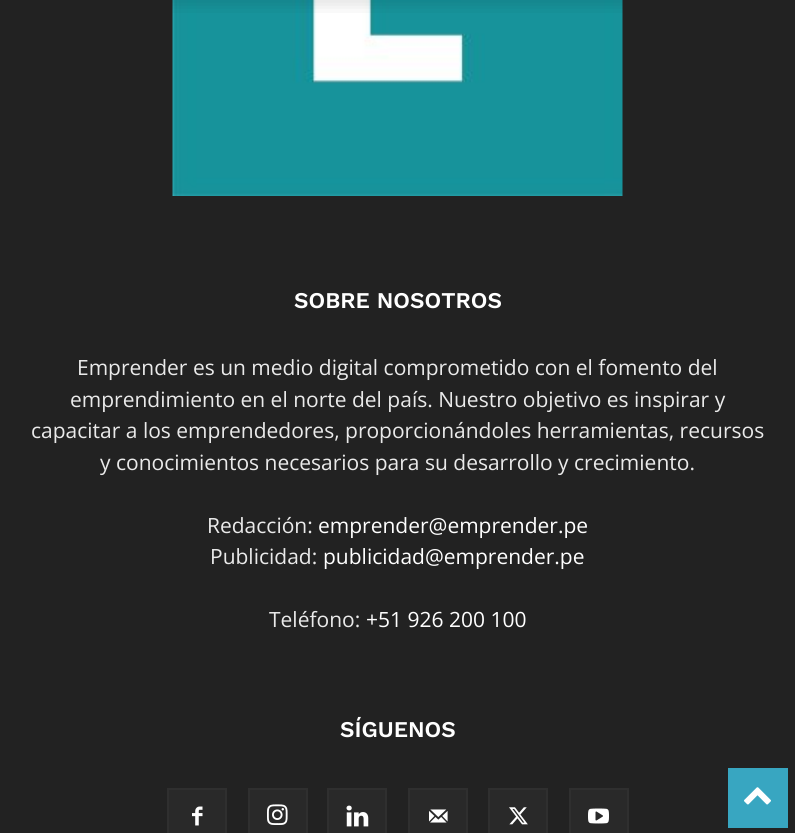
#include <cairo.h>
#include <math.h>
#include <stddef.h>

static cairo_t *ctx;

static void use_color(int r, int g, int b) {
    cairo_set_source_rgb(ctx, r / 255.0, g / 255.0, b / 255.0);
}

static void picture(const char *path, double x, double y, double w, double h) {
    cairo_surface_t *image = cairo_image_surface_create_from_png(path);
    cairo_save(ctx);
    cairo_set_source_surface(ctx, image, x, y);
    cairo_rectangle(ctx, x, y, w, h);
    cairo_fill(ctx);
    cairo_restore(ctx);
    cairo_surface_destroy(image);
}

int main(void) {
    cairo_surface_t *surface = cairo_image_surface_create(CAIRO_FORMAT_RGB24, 795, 833);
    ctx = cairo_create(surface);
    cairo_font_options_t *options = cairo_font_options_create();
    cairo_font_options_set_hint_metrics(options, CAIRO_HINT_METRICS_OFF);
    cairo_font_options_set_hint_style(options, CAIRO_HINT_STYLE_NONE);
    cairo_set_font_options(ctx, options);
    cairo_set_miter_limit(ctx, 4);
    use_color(34, 34, 34);
    cairo_paint(ctx);
    picture("img2.png", 172, 0, 451, 196);
    picture("img1.png", 172, 0, 451, 13);
    cairo_select_font_face(ctx, "Work Sans SemiBold", CAIRO_FONT_SLANT_NORMAL, CAIRO_FONT_WEIGHT_NORMAL);
    cairo_set_font_size(ctx, 22.5);
    use_color(255, 255, 255);
    cairo_move_to(ctx, 294, 308);
    cairo_show_text(ctx, "SOBRE NOSOTROS");
    cairo_select_font_face(ctx, "Open Sans", CAIRO_FONT_SLANT_NORMAL, CAIRO_FONT_WEIGHT_NORMAL);
    cairo_set_font_size(ctx, 21);
    use_color(234, 234, 234);
    cairo_move_to(ctx, 77, 375);
    cairo_show_text(ctx, "Emprender es un medio digital comprometido con el fomento del");
    cairo_move_to(ctx, 70, 407);
    cairo_show_text(ctx, "emprendimiento en el norte del país. Nuestro objetivo es inspirar y");
    cairo_move_to(ctx, 31, 438);
    cairo_show_text(ctx, "capacitar a los emprendedores, proporcionándoles herramientas, recursos");
    cairo_move_to(ctx, 100, 470);
    cairo_show_text(ctx, "y conocimientos necesarios para su desarrollo y crecimiento.");
    cairo_move_to(ctx, 207, 533);
    cairo_show_text(ctx, "Redacción:");
    use_color(255, 255, 255);
    cairo_move_to(ctx, 318, 533);
    cairo_show_text(ctx, "emprender@emprender.pe");
    use_color(234, 234, 234);
    cairo_move_to(ctx, 210, 564);
    cairo_show_text(ctx, "Publicidad:");
    use_color(255, 255, 255);
    cairo_move_to(ctx, 323, 564);
    cairo_show_text(ctx, "publicidad@emprender.pe");
    use_color(234, 234, 234);
    cairo_move_to(ctx, 269, 627);
    cairo_show_text(ctx, "Teléfono:");
    use_color(255, 255, 255);
    cairo_move_to(ctx, 366, 627);
    cairo_show_text(ctx, "+51 926 200 100");
    cairo_select_font_face(ctx, "Work Sans SemiBold", CAIRO_FONT_SLANT_NORMAL, CAIRO_FONT_WEIGHT_NORMAL);
    cairo_set_font_size(ctx, 22.5);
    cairo_move_to(ctx, 340, 737);
    cairo_show_text(ctx, "SÍGUENOS");
    use_color(41, 41, 41);
    cairo_rectangle(ctx, 169, 790, 56, 43);
    cairo_fill(ctx);
    picture("img3.png", 192, 806, 11, 20);
    cairo_rectangle(ctx, 168, 789, 58, 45);
    use_color(47, 47, 47);
    cairo_stroke(ctx);
    use_color(41, 41, 41);
    cairo_rectangle(ctx, 250, 790, 56, 43);
    cairo_fill(ctx);
    picture("img4.png", 267, 804, 21, 21);
    cairo_rectangle(ctx, 249, 789, 58, 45);
    use_color(47, 47, 47);
    cairo_stroke(ctx);
    use_color(41, 41, 41);
    cairo_rectangle(ctx, 329, 790, 56, 43);
    cairo_fill(ctx);
    picture("img5.png", 346, 805, 23, 22);
    cairo_rectangle(ctx, 328, 789, 58, 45);
    use_color(47, 47, 47);
    cairo_stroke(ctx);
    use_color(41, 41, 41);
    cairo_rectangle(ctx, 410, 790, 56, 43);
    cairo_fill(ctx);
    picture("img6.png", 429, 809, 19, 14);
    cairo_rectangle(ctx, 409, 789, 58, 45);
    use_color(47, 47, 47);
    cairo_stroke(ctx);
    use_color(41, 41, 41);
    cairo_rectangle(ctx, 490, 790, 56, 43);
    cairo_fill(ctx);
    picture("img7.png", 509, 807, 19, 18);
    cairo_rectangle(ctx, 489, 789, 58, 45);
    use_color(47, 47, 47);
    cairo_stroke(ctx);
    use_color(41, 41, 41);
    cairo_rectangle(ctx, 571, 790, 56, 43);
    cairo_fill(ctx);
    picture("img8.png", 588, 808, 21, 16);
    cairo_rectangle(ctx, 570, 789, 58, 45);
    use_color(47, 47, 47);
    cairo_stroke(ctx);
    use_color(56, 166, 193);
    cairo_rectangle(ctx, 728, 768, 60, 60);
    cairo_fill(ctx);
    picture("img9.png", 744, 787, 27, 18);
    cairo_surface_write_to_png(surface, "result.png");
    cairo_font_options_destroy(options);
    cairo_destroy(ctx);
    cairo_surface_destroy(surface);
    return 0;
}
